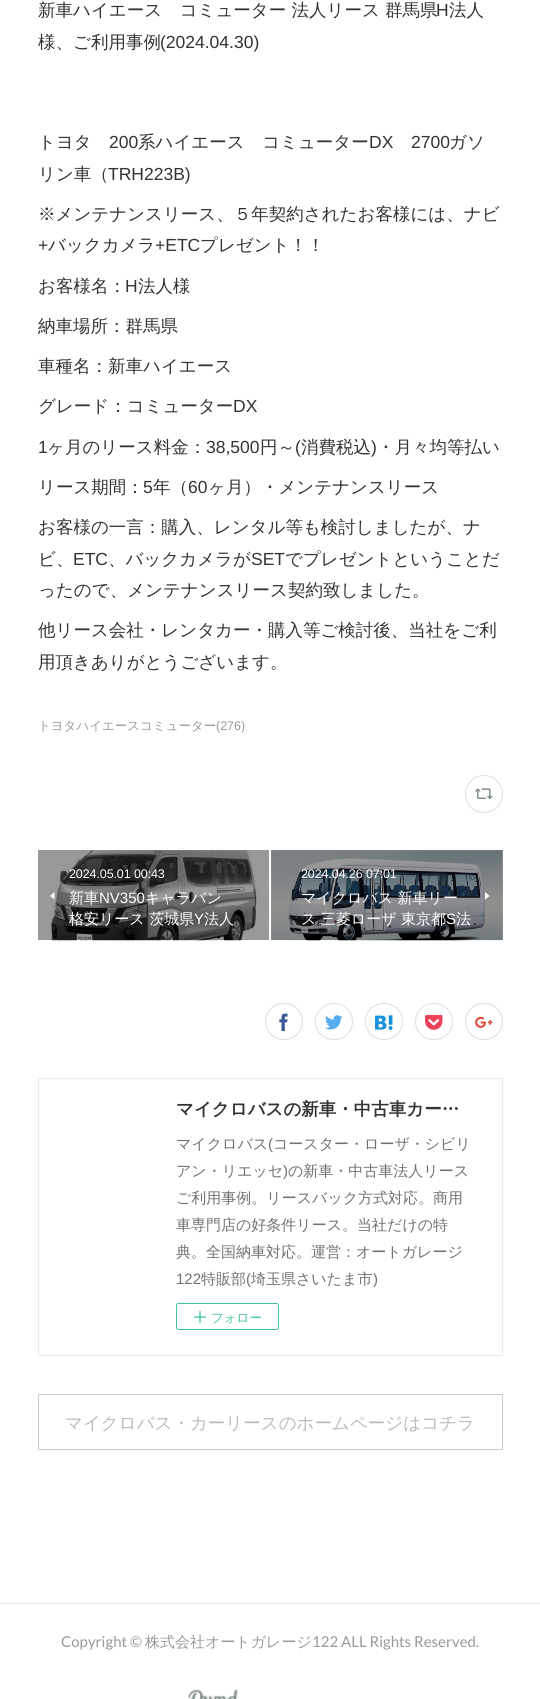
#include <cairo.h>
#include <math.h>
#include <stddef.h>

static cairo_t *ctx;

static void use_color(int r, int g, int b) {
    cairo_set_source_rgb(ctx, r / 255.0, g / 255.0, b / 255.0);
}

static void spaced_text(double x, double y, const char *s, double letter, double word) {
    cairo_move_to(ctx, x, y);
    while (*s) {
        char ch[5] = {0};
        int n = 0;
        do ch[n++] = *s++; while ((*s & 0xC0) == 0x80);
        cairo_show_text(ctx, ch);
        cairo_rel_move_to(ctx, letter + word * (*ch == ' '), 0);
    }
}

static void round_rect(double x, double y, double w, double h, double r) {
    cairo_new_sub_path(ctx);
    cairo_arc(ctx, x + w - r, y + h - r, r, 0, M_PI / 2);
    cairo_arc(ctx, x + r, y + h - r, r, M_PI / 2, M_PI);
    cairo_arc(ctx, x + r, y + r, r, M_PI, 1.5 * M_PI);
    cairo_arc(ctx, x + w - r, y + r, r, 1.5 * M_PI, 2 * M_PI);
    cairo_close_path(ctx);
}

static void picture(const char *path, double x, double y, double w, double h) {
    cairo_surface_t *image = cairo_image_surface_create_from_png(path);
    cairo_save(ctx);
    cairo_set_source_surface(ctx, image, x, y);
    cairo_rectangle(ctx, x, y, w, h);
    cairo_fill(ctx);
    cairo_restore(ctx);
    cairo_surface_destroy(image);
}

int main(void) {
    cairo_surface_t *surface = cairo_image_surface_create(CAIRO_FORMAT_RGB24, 540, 1699);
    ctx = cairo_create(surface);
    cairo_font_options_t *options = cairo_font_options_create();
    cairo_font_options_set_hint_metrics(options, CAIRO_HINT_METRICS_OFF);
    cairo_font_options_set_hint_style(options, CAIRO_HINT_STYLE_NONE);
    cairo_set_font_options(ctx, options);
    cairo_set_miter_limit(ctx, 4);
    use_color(255, 255, 255);
    cairo_paint(ctx);
    use_color(153, 153, 153);
    cairo_rectangle(ctx, 271, 850, 232, 90);
    cairo_fill(ctx);
    cairo_rectangle(ctx, 38, 850, 231, 90);
    cairo_fill(ctx);
    cairo_select_font_face(ctx, "WenQuanYi Zen Hei Medium", CAIRO_FONT_SLANT_NORMAL, CAIRO_FONT_WEIGHT_NORMAL);
    cairo_set_font_size(ctx, 17.5);
    use_color(51, 51, 51);
    cairo_move_to(ctx, 38, 16);
    cairo_show_text(ctx, "新車ハイエース　コミューター 法人リース 群馬県");
    cairo_select_font_face(ctx, "Liberation Sans", CAIRO_FONT_SLANT_NORMAL, CAIRO_FONT_WEIGHT_NORMAL);
    cairo_move_to(ctx, 436, 16);
    cairo_show_text(ctx, "H");
    cairo_select_font_face(ctx, "WenQuanYi Zen Hei Medium", CAIRO_FONT_SLANT_NORMAL, CAIRO_FONT_WEIGHT_NORMAL);
    cairo_move_to(ctx, 449, 16);
    cairo_show_text(ctx, "法人");
    cairo_move_to(ctx, 38, 48);
    cairo_show_text(ctx, "様、ご利用事例");
    cairo_select_font_face(ctx, "Liberation Sans", CAIRO_FONT_SLANT_NORMAL, CAIRO_FONT_WEIGHT_NORMAL);
    cairo_move_to(ctx, 160, 48);
    cairo_show_text(ctx, "(2024.04.30)");
    cairo_select_font_face(ctx, "WenQuanYi Zen Hei Medium", CAIRO_FONT_SLANT_NORMAL, CAIRO_FONT_WEIGHT_NORMAL);
    cairo_move_to(ctx, 38, 148);
    cairo_show_text(ctx, "トヨタ");
    cairo_select_font_face(ctx, "Liberation Sans", CAIRO_FONT_SLANT_NORMAL, CAIRO_FONT_WEIGHT_NORMAL);
    cairo_move_to(ctx, 109, 148);
    cairo_show_text(ctx, "200");
    cairo_select_font_face(ctx, "WenQuanYi Zen Hei Medium", CAIRO_FONT_SLANT_NORMAL, CAIRO_FONT_WEIGHT_NORMAL);
    cairo_move_to(ctx, 138, 148);
    cairo_show_text(ctx, "系ハイエース　コミューター");
    cairo_select_font_face(ctx, "Liberation Sans", CAIRO_FONT_SLANT_NORMAL, CAIRO_FONT_WEIGHT_NORMAL);
    cairo_move_to(ctx, 369, 148);
    cairo_show_text(ctx, "DX");
    cairo_move_to(ctx, 411, 148);
    cairo_show_text(ctx, "2700");
    cairo_select_font_face(ctx, "WenQuanYi Zen Hei Medium", CAIRO_FONT_SLANT_NORMAL, CAIRO_FONT_WEIGHT_NORMAL);
    cairo_move_to(ctx, 449, 148);
    cairo_show_text(ctx, "ガソ");
    cairo_move_to(ctx, 38, 180);
    cairo_show_text(ctx, "リン車（");
    cairo_select_font_face(ctx, "Liberation Sans", CAIRO_FONT_SLANT_NORMAL, CAIRO_FONT_WEIGHT_NORMAL);
    cairo_move_to(ctx, 108, 180);
    cairo_show_text(ctx, "TRH223B)");
    cairo_select_font_face(ctx, "WenQuanYi Zen Hei Medium", CAIRO_FONT_SLANT_NORMAL, CAIRO_FONT_WEIGHT_NORMAL);
    cairo_move_to(ctx, 38, 220);
    cairo_show_text(ctx, "※メンテナンスリース、５年契約されたお客様には、ナビ");
    cairo_select_font_face(ctx, "Liberation Sans", CAIRO_FONT_SLANT_NORMAL, CAIRO_FONT_WEIGHT_NORMAL);
    cairo_move_to(ctx, 38, 251);
    cairo_show_text(ctx, "+");
    cairo_select_font_face(ctx, "WenQuanYi Zen Hei Medium", CAIRO_FONT_SLANT_NORMAL, CAIRO_FONT_WEIGHT_NORMAL);
    cairo_move_to(ctx, 48, 251);
    cairo_show_text(ctx, "バックカメラ");
    cairo_select_font_face(ctx, "Liberation Sans", CAIRO_FONT_SLANT_NORMAL, CAIRO_FONT_WEIGHT_NORMAL);
    cairo_move_to(ctx, 155, 251);
    cairo_show_text(ctx, "+ETC");
    cairo_select_font_face(ctx, "WenQuanYi Zen Hei Medium", CAIRO_FONT_SLANT_NORMAL, CAIRO_FONT_WEIGHT_NORMAL);
    cairo_move_to(ctx, 200, 251);
    cairo_show_text(ctx, "プレゼント！！");
    cairo_move_to(ctx, 38, 292);
    cairo_show_text(ctx, "お客様名：");
    cairo_select_font_face(ctx, "Liberation Sans", CAIRO_FONT_SLANT_NORMAL, CAIRO_FONT_WEIGHT_NORMAL);
    cairo_move_to(ctx, 125, 292);
    cairo_show_text(ctx, "H");
    cairo_select_font_face(ctx, "WenQuanYi Zen Hei Medium", CAIRO_FONT_SLANT_NORMAL, CAIRO_FONT_WEIGHT_NORMAL);
    cairo_move_to(ctx, 138, 292);
    cairo_show_text(ctx, "法人様");
    cairo_move_to(ctx, 38, 332);
    cairo_show_text(ctx, "納車場所：群馬県");
    cairo_move_to(ctx, 38, 372);
    cairo_show_text(ctx, "車種名：新車ハイエース");
    cairo_move_to(ctx, 38, 412);
    cairo_show_text(ctx, "グレード：コミューター");
    cairo_select_font_face(ctx, "Liberation Sans", CAIRO_FONT_SLANT_NORMAL, CAIRO_FONT_WEIGHT_NORMAL);
    cairo_move_to(ctx, 233, 412);
    cairo_show_text(ctx, "DX");
    cairo_move_to(ctx, 38, 453);
    cairo_show_text(ctx, "1");
    cairo_select_font_face(ctx, "WenQuanYi Zen Hei Medium", CAIRO_FONT_SLANT_NORMAL, CAIRO_FONT_WEIGHT_NORMAL);
    cairo_move_to(ctx, 47, 453);
    cairo_show_text(ctx, "ヶ月のリース料金：");
    cairo_select_font_face(ctx, "Liberation Sans", CAIRO_FONT_SLANT_NORMAL, CAIRO_FONT_WEIGHT_NORMAL);
    cairo_move_to(ctx, 206, 453);
    cairo_show_text(ctx, "38,500");
    cairo_select_font_face(ctx, "WenQuanYi Zen Hei Medium", CAIRO_FONT_SLANT_NORMAL, CAIRO_FONT_WEIGHT_NORMAL);
    cairo_move_to(ctx, 260, 453);
    cairo_show_text(ctx, "円～");
    cairo_select_font_face(ctx, "Liberation Sans", CAIRO_FONT_SLANT_NORMAL, CAIRO_FONT_WEIGHT_NORMAL);
    cairo_move_to(ctx, 295, 453);
    cairo_show_text(ctx, "(");
    cairo_select_font_face(ctx, "WenQuanYi Zen Hei Medium", CAIRO_FONT_SLANT_NORMAL, CAIRO_FONT_WEIGHT_NORMAL);
    cairo_move_to(ctx, 301, 453);
    cairo_show_text(ctx, "消費税込");
    cairo_select_font_face(ctx, "Liberation Sans", CAIRO_FONT_SLANT_NORMAL, CAIRO_FONT_WEIGHT_NORMAL);
    cairo_move_to(ctx, 371, 453);
    cairo_show_text(ctx, ")");
    cairo_select_font_face(ctx, "WenQuanYi Zen Hei Medium", CAIRO_FONT_SLANT_NORMAL, CAIRO_FONT_WEIGHT_NORMAL);
    cairo_move_to(ctx, 377, 453);
    cairo_show_text(ctx, "・月々均等払い");
    cairo_move_to(ctx, 38, 493);
    cairo_show_text(ctx, "リース期間：");
    cairo_select_font_face(ctx, "Liberation Sans", CAIRO_FONT_SLANT_NORMAL, CAIRO_FONT_WEIGHT_NORMAL);
    cairo_move_to(ctx, 143, 493);
    cairo_show_text(ctx, "5");
    cairo_select_font_face(ctx, "WenQuanYi Zen Hei Medium", CAIRO_FONT_SLANT_NORMAL, CAIRO_FONT_WEIGHT_NORMAL);
    cairo_move_to(ctx, 153, 493);
    cairo_show_text(ctx, "年（");
    cairo_select_font_face(ctx, "Liberation Sans", CAIRO_FONT_SLANT_NORMAL, CAIRO_FONT_WEIGHT_NORMAL);
    cairo_move_to(ctx, 188, 493);
    cairo_show_text(ctx, "60");
    cairo_select_font_face(ctx, "WenQuanYi Zen Hei Medium", CAIRO_FONT_SLANT_NORMAL, CAIRO_FONT_WEIGHT_NORMAL);
    cairo_move_to(ctx, 208, 493);
    cairo_show_text(ctx, "ヶ月）・メンテナンスリース");
    cairo_move_to(ctx, 38, 533);
    cairo_show_text(ctx, "お客様の一言：購入、レンタル等も検討しましたが、ナ");
    cairo_move_to(ctx, 38, 565);
    cairo_show_text(ctx, "ビ、");
    cairo_select_font_face(ctx, "Liberation Sans", CAIRO_FONT_SLANT_NORMAL, CAIRO_FONT_WEIGHT_NORMAL);
    cairo_move_to(ctx, 73, 565);
    cairo_show_text(ctx, "ETC");
    cairo_select_font_face(ctx, "WenQuanYi Zen Hei Medium", CAIRO_FONT_SLANT_NORMAL, CAIRO_FONT_WEIGHT_NORMAL);
    cairo_move_to(ctx, 108, 565);
    cairo_show_text(ctx, "、バックカメラが");
    cairo_select_font_face(ctx, "Liberation Sans", CAIRO_FONT_SLANT_NORMAL, CAIRO_FONT_WEIGHT_NORMAL);
    cairo_move_to(ctx, 251, 565);
    cairo_show_text(ctx, "SET");
    cairo_select_font_face(ctx, "WenQuanYi Zen Hei Medium", CAIRO_FONT_SLANT_NORMAL, CAIRO_FONT_WEIGHT_NORMAL);
    cairo_move_to(ctx, 285, 565);
    cairo_show_text(ctx, "でプレゼントということだ");
    cairo_move_to(ctx, 38, 596);
    cairo_show_text(ctx, "ったので、メンテナンスリース契約致しました。");
    cairo_move_to(ctx, 38, 636);
    cairo_show_text(ctx, "他リース会社・レンタカー・購入等ご検討後、当社をご利");
    cairo_move_to(ctx, 38, 668);
    cairo_show_text(ctx, "用頂きありがとうございます。");
    cairo_set_font_size(ctx, 12.5);
    use_color(153, 153, 153);
    cairo_move_to(ctx, 38, 730);
    cairo_show_text(ctx, "トヨタハイエースコミューター");
    cairo_select_font_face(ctx, "Liberation Sans", CAIRO_FONT_SLANT_NORMAL, CAIRO_FONT_WEIGHT_NORMAL);
    cairo_move_to(ctx, 216, 730);
    cairo_show_text(ctx, "(276)");
    cairo_new_path(ctx);
    cairo_arc(ctx, 484, 794, 18.5, 0, 2 * M_PI);
    use_color(221, 221, 221);
    cairo_set_line_width(ctx, 1);
    cairo_stroke(ctx);
    picture("img1.png", 475, 788, 18, 11);
    picture("img2.png", 50, 850, 209, 91);
    use_color(255, 255, 255);
    spaced_text(69, 878, "2024.05.01 00:43", -0.1, 0);
    cairo_new_path(ctx);
    cairo_move_to(ctx, 54.5, 899.5);
    cairo_line_to(ctx, 54.5, 892);
    cairo_line_to(ctx, 50, 896);
    cairo_close_path(ctx);
    cairo_fill(ctx);
    cairo_select_font_face(ctx, "WenQuanYi Zen Hei Medium", CAIRO_FONT_SLANT_NORMAL, CAIRO_FONT_WEIGHT_NORMAL);
    cairo_set_font_size(ctx, 15);
    cairo_move_to(ctx, 69, 903);
    cairo_show_text(ctx, "新車");
    cairo_select_font_face(ctx, "Liberation Sans", CAIRO_FONT_SLANT_NORMAL, CAIRO_FONT_WEIGHT_NORMAL);
    cairo_move_to(ctx, 99, 903);
    cairo_show_text(ctx, "NV350");
    cairo_select_font_face(ctx, "WenQuanYi Zen Hei Medium", CAIRO_FONT_SLANT_NORMAL, CAIRO_FONT_WEIGHT_NORMAL);
    cairo_move_to(ctx, 145, 903);
    cairo_show_text(ctx, "キャラバン");
    cairo_move_to(ctx, 69, 924);
    cairo_show_text(ctx, "格安リース 茨城県");
    cairo_select_font_face(ctx, "Liberation Sans", CAIRO_FONT_SLANT_NORMAL, CAIRO_FONT_WEIGHT_NORMAL);
    cairo_move_to(ctx, 194, 924);
    cairo_show_text(ctx, "Y");
    cairo_select_font_face(ctx, "WenQuanYi Zen Hei Medium", CAIRO_FONT_SLANT_NORMAL, CAIRO_FONT_WEIGHT_NORMAL);
    cairo_move_to(ctx, 204, 924);
    cairo_show_text(ctx, "法人");
    picture("img3.png", 271, 850, 232, 91);
    cairo_select_font_face(ctx, "Liberation Sans", CAIRO_FONT_SLANT_NORMAL, CAIRO_FONT_WEIGHT_NORMAL);
    cairo_set_font_size(ctx, 12.5);
    spaced_text(301, 878, "2024.04.26 07:01", -0.1, 0);
    cairo_select_font_face(ctx, "WenQuanYi Zen Hei Medium", CAIRO_FONT_SLANT_NORMAL, CAIRO_FONT_WEIGHT_NORMAL);
    cairo_set_font_size(ctx, 15);
    cairo_move_to(ctx, 301, 903);
    cairo_show_text(ctx, "マイクロバス 新車リー");
    cairo_move_to(ctx, 301, 924);
    cairo_show_text(ctx, "ス 三菱ローザ 東京都");
    cairo_select_font_face(ctx, "Liberation Sans", CAIRO_FONT_SLANT_NORMAL, CAIRO_FONT_WEIGHT_NORMAL);
    cairo_move_to(ctx, 446, 924);
    cairo_show_text(ctx, "S");
    cairo_select_font_face(ctx, "WenQuanYi Zen Hei Medium", CAIRO_FONT_SLANT_NORMAL, CAIRO_FONT_WEIGHT_NORMAL);
    cairo_move_to(ctx, 456, 924);
    cairo_show_text(ctx, "法");
    cairo_new_path(ctx);
    cairo_move_to(ctx, 485, 892);
    cairo_line_to(ctx, 485, 899.5);
    cairo_line_to(ctx, 489.5, 896);
    cairo_close_path(ctx);
    cairo_fill(ctx);
    round_rect(265.5, 1003.5, 37, 36, 18);
    use_color(221, 221, 221);
    cairo_stroke(ctx);
    picture("img4.png", 279, 1013, 9, 19);
    round_rect(315.5, 1003.5, 37, 36, 18);
    cairo_stroke(ctx);
    picture("img5.png", 325, 1015, 18, 15);
    round_rect(365.5, 1003.5, 37, 36, 18);
    cairo_stroke(ctx);
    picture("img6.png", 375, 1015, 18, 15);
    round_rect(415.5, 1003.5, 37, 36, 18);
    cairo_stroke(ctx);
    picture("img7.png", 425, 1014, 18, 16);
    round_rect(465.5, 1003.5, 37, 36, 18);
    cairo_stroke(ctx);
    picture("img8.png", 475, 1016, 18, 12);
    cairo_rectangle(ctx, 38.5, 1078.5, 464, 277);
    use_color(235, 235, 235);
    cairo_stroke(ctx);
    cairo_select_font_face(ctx, "WenQuanYi Zen Hei", CAIRO_FONT_SLANT_NORMAL, CAIRO_FONT_WEIGHT_BOLD);
    cairo_set_font_size(ctx, 17.5);
    use_color(51, 51, 51);
    cairo_move_to(ctx, 176, 1115);
    cairo_show_text(ctx, "マイクロバスの新車・中古車カー…");
    cairo_select_font_face(ctx, "WenQuanYi Zen Hei Medium", CAIRO_FONT_SLANT_NORMAL, CAIRO_FONT_WEIGHT_NORMAL);
    cairo_set_font_size(ctx, 15);
    use_color(112, 112, 112);
    cairo_move_to(ctx, 176, 1149);
    cairo_show_text(ctx, "マイクロバス");
    cairo_select_font_face(ctx, "Liberation Sans", CAIRO_FONT_SLANT_NORMAL, CAIRO_FONT_WEIGHT_NORMAL);
    cairo_move_to(ctx, 268, 1149);
    cairo_show_text(ctx, "(");
    cairo_select_font_face(ctx, "WenQuanYi Zen Hei Medium", CAIRO_FONT_SLANT_NORMAL, CAIRO_FONT_WEIGHT_NORMAL);
    cairo_move_to(ctx, 273, 1149);
    cairo_show_text(ctx, "コースター・ローザ・シビリ");
    cairo_move_to(ctx, 176, 1176);
    cairo_show_text(ctx, "アン・リエッセ");
    cairo_select_font_face(ctx, "Liberation Sans", CAIRO_FONT_SLANT_NORMAL, CAIRO_FONT_WEIGHT_NORMAL);
    cairo_move_to(ctx, 283, 1176);
    cairo_show_text(ctx, ")");
    cairo_select_font_face(ctx, "WenQuanYi Zen Hei Medium", CAIRO_FONT_SLANT_NORMAL, CAIRO_FONT_WEIGHT_NORMAL);
    cairo_move_to(ctx, 288, 1176);
    cairo_show_text(ctx, "の新車・中古車法人リース");
    cairo_move_to(ctx, 176, 1203);
    cairo_show_text(ctx, "ご利用事例。リースバック方式対応。商用");
    cairo_move_to(ctx, 176, 1230);
    cairo_show_text(ctx, "車専門店の好条件リース。当社だけの特");
    cairo_move_to(ctx, 176, 1257);
    cairo_show_text(ctx, "典。全国納車対応。運営：オートガレージ");
    cairo_select_font_face(ctx, "Liberation Sans", CAIRO_FONT_SLANT_NORMAL, CAIRO_FONT_WEIGHT_NORMAL);
    cairo_move_to(ctx, 176, 1284);
    cairo_show_text(ctx, "122");
    cairo_select_font_face(ctx, "WenQuanYi Zen Hei Medium", CAIRO_FONT_SLANT_NORMAL, CAIRO_FONT_WEIGHT_NORMAL);
    cairo_move_to(ctx, 201, 1284);
    cairo_show_text(ctx, "特販部");
    cairo_select_font_face(ctx, "Liberation Sans", CAIRO_FONT_SLANT_NORMAL, CAIRO_FONT_WEIGHT_NORMAL);
    cairo_move_to(ctx, 246, 1284);
    cairo_show_text(ctx, "(");
    cairo_select_font_face(ctx, "WenQuanYi Zen Hei Medium", CAIRO_FONT_SLANT_NORMAL, CAIRO_FONT_WEIGHT_NORMAL);
    cairo_move_to(ctx, 251, 1284);
    cairo_show_text(ctx, "埼玉県さいたま市");
    cairo_select_font_face(ctx, "Liberation Sans", CAIRO_FONT_SLANT_NORMAL, CAIRO_FONT_WEIGHT_NORMAL);
    cairo_move_to(ctx, 373, 1284);
    cairo_show_text(ctx, ")");
    round_rect(176.5, 1303.5, 102, 26, 2);
    use_color(61, 196, 157);
    cairo_stroke(ctx);
    picture("img9.png", 193, 1310, 14, 14);
    cairo_select_font_face(ctx, "WenQuanYi Zen Hei Medium", CAIRO_FONT_SLANT_NORMAL, CAIRO_FONT_WEIGHT_NORMAL);
    cairo_set_font_size(ctx, 12.5);
    cairo_move_to(ctx, 211, 1322);
    cairo_show_text(ctx, "フォロー");
    cairo_rectangle(ctx, 38.5, 1394.5, 464, 55);
    use_color(204, 204, 204);
    cairo_stroke(ctx);
    cairo_set_font_size(ctx, 17.5);
    use_color(187, 187, 187);
    cairo_move_to(ctx, 65, 1429);
    cairo_show_text(ctx, "マイクロバス・カーリースのホームページはコチラ");
    use_color(235, 235, 235);
    cairo_rectangle(ctx, 0, 1603, 540, 1);
    cairo_fill(ctx);
    cairo_select_font_face(ctx, "Lato", CAIRO_FONT_SLANT_NORMAL, CAIRO_FONT_WEIGHT_NORMAL);
    cairo_set_font_size(ctx, 15);
    use_color(153, 153, 153);
    cairo_move_to(ctx, 61, 1647);
    cairo_show_text(ctx, "Copyright ©");
    cairo_select_font_face(ctx, "WenQuanYi Zen Hei Medium", CAIRO_FONT_SLANT_NORMAL, CAIRO_FONT_WEIGHT_NORMAL);
    cairo_move_to(ctx, 145, 1647);
    cairo_show_text(ctx, "株式会社オートガレージ");
    cairo_select_font_face(ctx, "Lato", CAIRO_FONT_SLANT_NORMAL, CAIRO_FONT_WEIGHT_NORMAL);
    cairo_move_to(ctx, 312, 1647);
    cairo_show_text(ctx, "122 ALL Rights Reserved.");
    picture("img10.png", 187, 1689, 51, 10);
    cairo_surface_write_to_png(surface, "result.png");
    cairo_font_options_destroy(options);
    cairo_destroy(ctx);
    cairo_surface_destroy(surface);
    return 0;
}
